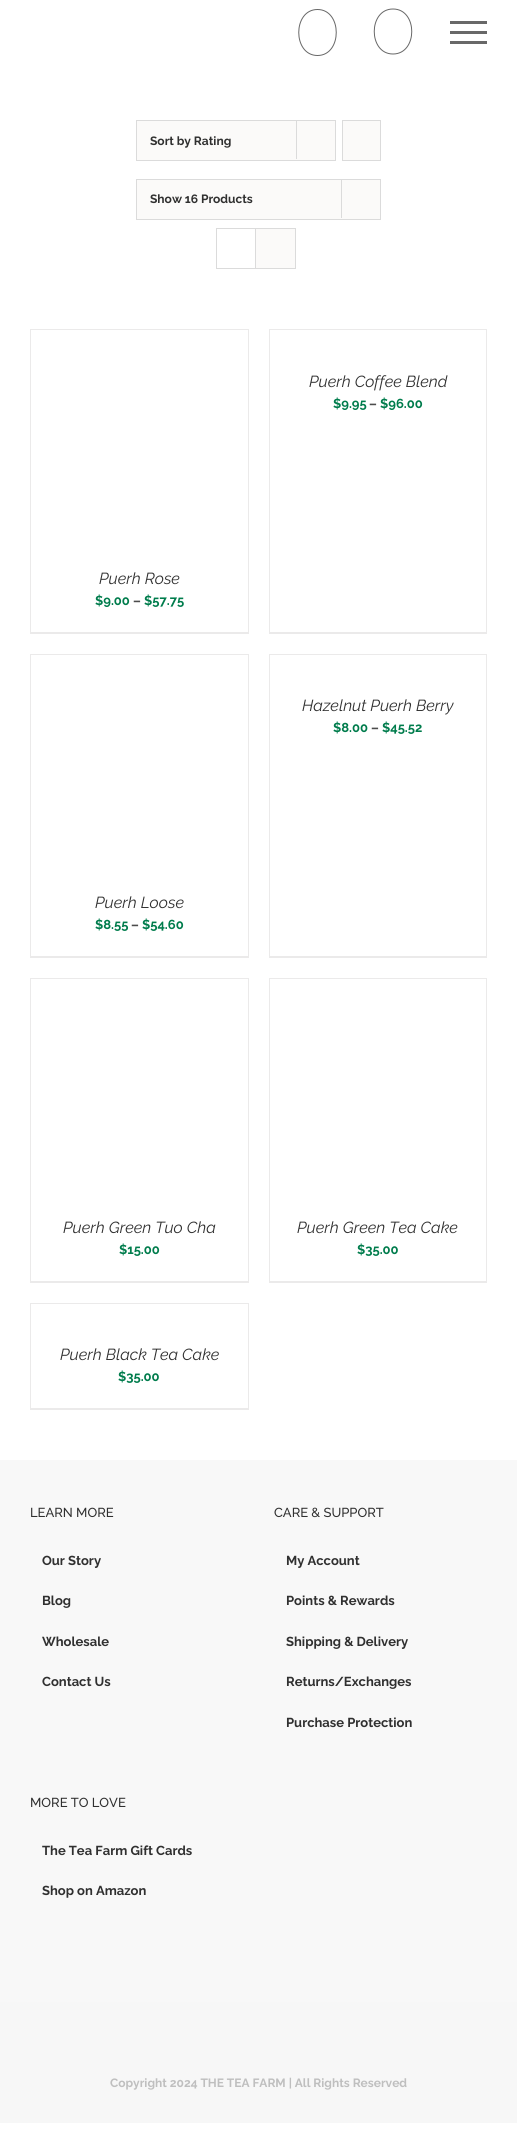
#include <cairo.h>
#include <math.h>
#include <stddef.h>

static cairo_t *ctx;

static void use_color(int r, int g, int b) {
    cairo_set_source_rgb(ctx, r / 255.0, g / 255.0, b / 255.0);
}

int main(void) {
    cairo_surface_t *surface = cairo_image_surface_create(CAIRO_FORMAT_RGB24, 517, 2155);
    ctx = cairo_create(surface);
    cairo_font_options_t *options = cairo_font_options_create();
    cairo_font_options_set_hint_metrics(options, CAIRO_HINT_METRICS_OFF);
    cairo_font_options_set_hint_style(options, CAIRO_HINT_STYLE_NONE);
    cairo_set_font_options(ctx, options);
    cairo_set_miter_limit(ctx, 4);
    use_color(255, 255, 255);
    cairo_paint(ctx);
    cairo_new_path(ctx);
    cairo_move_to(ctx, 317.5, 9.5);
    cairo_curve_to(ctx, 342.5, 9.5, 342.5, 55.5, 317.5, 55.5);
    cairo_curve_to(ctx, 292.5, 55.5, 292.5, 9.5, 317.5, 9.5);
    cairo_close_path(ctx);
    use_color(104, 104, 104);
    cairo_set_line_width(ctx, 1);
    cairo_stroke(ctx);
    cairo_new_path(ctx);
    cairo_move_to(ctx, 393, 9);
    cairo_curve_to(ctx, 418, 9, 418, 54, 393, 54);
    cairo_curve_to(ctx, 368, 54, 368, 9, 393, 9);
    cairo_close_path(ctx);
    cairo_stroke(ctx);
    cairo_rectangle(ctx, 450, 21, 37, 3);
    cairo_fill(ctx);
    cairo_rectangle(ctx, 450, 31, 37, 3);
    cairo_fill(ctx);
    cairo_rectangle(ctx, 450, 41, 37, 3);
    cairo_fill(ctx);
    use_color(251, 250, 249);
    cairo_rectangle(ctx, 136.5, 120.5, 199, 40);
    cairo_fill_preserve(ctx);
    use_color(219, 219, 219);
    cairo_stroke(ctx);
    cairo_select_font_face(ctx, "Raleway", CAIRO_FONT_SLANT_NORMAL, CAIRO_FONT_WEIGHT_BOLD);
    cairo_set_font_size(ctx, 12);
    use_color(48, 48, 48);
    cairo_move_to(ctx, 150, 145);
    cairo_show_text(ctx, "Sort by Rating");
    use_color(219, 219, 219);
    cairo_rectangle(ctx, 296, 120, 1, 39);
    cairo_fill(ctx);
    use_color(251, 250, 249);
    cairo_rectangle(ctx, 342.5, 120.5, 38, 40);
    cairo_fill_preserve(ctx);
    use_color(219, 219, 219);
    cairo_stroke(ctx);
    use_color(251, 250, 249);
    cairo_rectangle(ctx, 136.5, 179.5, 244, 40);
    cairo_fill_preserve(ctx);
    use_color(219, 219, 219);
    cairo_stroke(ctx);
    use_color(48, 48, 48);
    cairo_move_to(ctx, 150, 203);
    cairo_show_text(ctx, "Show 16 Products");
    use_color(219, 219, 219);
    cairo_rectangle(ctx, 341, 179, 1, 39);
    cairo_fill(ctx);
    cairo_rectangle(ctx, 216.5, 228.5, 79, 40);
    cairo_stroke(ctx);
    cairo_rectangle(ctx, 255, 229, 1, 39);
    cairo_fill(ctx);
    use_color(251, 250, 249);
    cairo_rectangle(ctx, 256, 229, 39, 39);
    cairo_fill(ctx);
    use_color(235, 234, 234);
    cairo_rectangle(ctx, 269, 329, 218, 1);
    cairo_fill(ctx);
    cairo_rectangle(ctx, 486, 329, 1, 305);
    cairo_fill(ctx);
    cairo_rectangle(ctx, 269, 632, 218, 2);
    cairo_fill(ctx);
    cairo_rectangle(ctx, 269, 329, 1, 305);
    cairo_fill(ctx);
    cairo_select_font_face(ctx, "Raleway", CAIRO_FONT_SLANT_ITALIC, CAIRO_FONT_WEIGHT_NORMAL);
    cairo_set_font_size(ctx, 16);
    use_color(48, 48, 48);
    cairo_move_to(ctx, 309, 387);
    cairo_show_text(ctx, "Puerh Coffee Blend");
    cairo_select_font_face(ctx, "Raleway", CAIRO_FONT_SLANT_NORMAL, CAIRO_FONT_WEIGHT_BOLD);
    cairo_set_font_size(ctx, 13);
    use_color(0, 124, 76);
    cairo_move_to(ctx, 333, 408);
    cairo_show_text(ctx, "$9.95");
    use_color(76, 76, 76);
    cairo_move_to(ctx, 369, 408);
    cairo_show_text(ctx, "–");
    use_color(0, 124, 76);
    cairo_move_to(ctx, 380, 408);
    cairo_show_text(ctx, "$96.00");
    use_color(235, 234, 234);
    cairo_rectangle(ctx, 30, 329, 219, 1);
    cairo_fill(ctx);
    cairo_rectangle(ctx, 248, 329, 1, 305);
    cairo_fill(ctx);
    cairo_rectangle(ctx, 30, 632, 219, 2);
    cairo_fill(ctx);
    cairo_rectangle(ctx, 30, 329, 1, 305);
    cairo_fill(ctx);
    cairo_select_font_face(ctx, "Raleway", CAIRO_FONT_SLANT_ITALIC, CAIRO_FONT_WEIGHT_NORMAL);
    cairo_set_font_size(ctx, 16);
    use_color(48, 48, 48);
    cairo_move_to(ctx, 99, 584);
    cairo_show_text(ctx, "Puerh Rose");
    cairo_select_font_face(ctx, "Raleway", CAIRO_FONT_SLANT_NORMAL, CAIRO_FONT_WEIGHT_BOLD);
    cairo_set_font_size(ctx, 13);
    use_color(0, 124, 76);
    cairo_move_to(ctx, 95, 605);
    cairo_show_text(ctx, "$9.00");
    use_color(76, 76, 76);
    cairo_move_to(ctx, 133, 605);
    cairo_show_text(ctx, "–");
    use_color(0, 124, 76);
    cairo_move_to(ctx, 144, 605);
    cairo_show_text(ctx, "$57.75");
    use_color(235, 234, 234);
    cairo_rectangle(ctx, 269, 654, 218, 1);
    cairo_fill(ctx);
    cairo_rectangle(ctx, 486, 654, 1, 304);
    cairo_fill(ctx);
    cairo_rectangle(ctx, 269, 956, 218, 2);
    cairo_fill(ctx);
    cairo_rectangle(ctx, 269, 654, 1, 304);
    cairo_fill(ctx);
    cairo_select_font_face(ctx, "Raleway", CAIRO_FONT_SLANT_ITALIC, CAIRO_FONT_WEIGHT_NORMAL);
    cairo_set_font_size(ctx, 16);
    use_color(48, 48, 48);
    cairo_move_to(ctx, 302, 711);
    cairo_show_text(ctx, "Hazelnut Puerh Berry");
    cairo_select_font_face(ctx, "Raleway", CAIRO_FONT_SLANT_NORMAL, CAIRO_FONT_WEIGHT_BOLD);
    cairo_set_font_size(ctx, 13);
    use_color(0, 124, 76);
    cairo_move_to(ctx, 333, 732);
    cairo_show_text(ctx, "$8.00");
    use_color(76, 76, 76);
    cairo_move_to(ctx, 371, 732);
    cairo_show_text(ctx, "–");
    use_color(0, 124, 76);
    cairo_move_to(ctx, 382, 732);
    cairo_show_text(ctx, "$45.52");
    use_color(235, 234, 234);
    cairo_rectangle(ctx, 30, 654, 219, 1);
    cairo_fill(ctx);
    cairo_rectangle(ctx, 248, 654, 1, 304);
    cairo_fill(ctx);
    cairo_rectangle(ctx, 30, 956, 219, 2);
    cairo_fill(ctx);
    cairo_rectangle(ctx, 30, 654, 1, 304);
    cairo_fill(ctx);
    cairo_select_font_face(ctx, "Raleway", CAIRO_FONT_SLANT_ITALIC, CAIRO_FONT_WEIGHT_NORMAL);
    cairo_set_font_size(ctx, 16);
    use_color(48, 48, 48);
    cairo_move_to(ctx, 95, 908);
    cairo_show_text(ctx, "Puerh Loose");
    cairo_select_font_face(ctx, "Raleway", CAIRO_FONT_SLANT_NORMAL, CAIRO_FONT_WEIGHT_BOLD);
    cairo_set_font_size(ctx, 13);
    use_color(0, 124, 76);
    cairo_move_to(ctx, 95, 929);
    cairo_show_text(ctx, "$8.55");
    use_color(76, 76, 76);
    cairo_move_to(ctx, 131, 929);
    cairo_show_text(ctx, "–");
    use_color(0, 124, 76);
    cairo_move_to(ctx, 142, 929);
    cairo_show_text(ctx, "$54.60");
    use_color(235, 234, 234);
    cairo_rectangle(ctx, 30, 978, 219, 1);
    cairo_fill(ctx);
    cairo_rectangle(ctx, 248, 978, 1, 305);
    cairo_fill(ctx);
    cairo_rectangle(ctx, 30, 1281, 219, 2);
    cairo_fill(ctx);
    cairo_rectangle(ctx, 30, 978, 1, 305);
    cairo_fill(ctx);
    cairo_select_font_face(ctx, "Raleway", CAIRO_FONT_SLANT_ITALIC, CAIRO_FONT_WEIGHT_NORMAL);
    cairo_set_font_size(ctx, 16);
    use_color(48, 48, 48);
    cairo_move_to(ctx, 63, 1233);
    cairo_show_text(ctx, "Puerh Green Tuo Cha");
    cairo_select_font_face(ctx, "Raleway", CAIRO_FONT_SLANT_NORMAL, CAIRO_FONT_WEIGHT_BOLD);
    cairo_set_font_size(ctx, 13);
    use_color(0, 124, 76);
    cairo_move_to(ctx, 119, 1254);
    cairo_show_text(ctx, "$15.00");
    use_color(235, 234, 234);
    cairo_rectangle(ctx, 269, 978, 218, 1);
    cairo_fill(ctx);
    cairo_rectangle(ctx, 486, 978, 1, 305);
    cairo_fill(ctx);
    cairo_rectangle(ctx, 269, 1281, 218, 2);
    cairo_fill(ctx);
    cairo_rectangle(ctx, 269, 978, 1, 305);
    cairo_fill(ctx);
    cairo_select_font_face(ctx, "Raleway", CAIRO_FONT_SLANT_ITALIC, CAIRO_FONT_WEIGHT_NORMAL);
    cairo_set_font_size(ctx, 16);
    use_color(48, 48, 48);
    cairo_move_to(ctx, 297, 1233);
    cairo_show_text(ctx, "Puerh Green Tea Cake");
    cairo_select_font_face(ctx, "Raleway", CAIRO_FONT_SLANT_NORMAL, CAIRO_FONT_WEIGHT_BOLD);
    cairo_set_font_size(ctx, 13);
    use_color(0, 124, 76);
    cairo_move_to(ctx, 357, 1254);
    cairo_show_text(ctx, "$35.00");
    use_color(235, 234, 234);
    cairo_rectangle(ctx, 30, 1303, 219, 1);
    cairo_fill(ctx);
    cairo_rectangle(ctx, 248, 1303, 1, 107);
    cairo_fill(ctx);
    cairo_rectangle(ctx, 30, 1408, 219, 2);
    cairo_fill(ctx);
    cairo_rectangle(ctx, 30, 1303, 1, 107);
    cairo_fill(ctx);
    cairo_select_font_face(ctx, "Raleway", CAIRO_FONT_SLANT_ITALIC, CAIRO_FONT_WEIGHT_NORMAL);
    cairo_set_font_size(ctx, 16);
    use_color(48, 48, 48);
    cairo_move_to(ctx, 60, 1360);
    cairo_show_text(ctx, "Puerh Black Tea Cake");
    cairo_select_font_face(ctx, "Raleway", CAIRO_FONT_SLANT_NORMAL, CAIRO_FONT_WEIGHT_BOLD);
    cairo_set_font_size(ctx, 13);
    use_color(0, 124, 76);
    cairo_move_to(ctx, 118, 1381);
    cairo_show_text(ctx, "$35.00");
    use_color(248, 248, 248);
    cairo_rectangle(ctx, 0, 1460, 517, 542);
    cairo_fill(ctx);
    cairo_select_font_face(ctx, "Raleway Medium", CAIRO_FONT_SLANT_NORMAL, CAIRO_FONT_WEIGHT_NORMAL);
    use_color(48, 48, 48);
    cairo_move_to(ctx, 30, 1517);
    cairo_show_text(ctx, "LEARN MORE");
    cairo_select_font_face(ctx, "Raleway", CAIRO_FONT_SLANT_NORMAL, CAIRO_FONT_WEIGHT_BOLD);
    cairo_move_to(ctx, 42, 1565);
    cairo_show_text(ctx, "Our Story");
    cairo_move_to(ctx, 42, 1605);
    cairo_show_text(ctx, "Blog");
    cairo_move_to(ctx, 42, 1646);
    cairo_show_text(ctx, "Wholesale");
    cairo_move_to(ctx, 42, 1686);
    cairo_show_text(ctx, "Contact Us");
    cairo_select_font_face(ctx, "Raleway Medium", CAIRO_FONT_SLANT_NORMAL, CAIRO_FONT_WEIGHT_NORMAL);
    cairo_move_to(ctx, 274, 1517);
    cairo_show_text(ctx, "CARE & SUPPORT");
    cairo_select_font_face(ctx, "Raleway", CAIRO_FONT_SLANT_NORMAL, CAIRO_FONT_WEIGHT_BOLD);
    cairo_move_to(ctx, 286, 1565);
    cairo_show_text(ctx, "My Account");
    cairo_move_to(ctx, 286, 1605);
    cairo_show_text(ctx, "Points & Rewards");
    cairo_move_to(ctx, 286, 1646);
    cairo_show_text(ctx, "Shipping & Delivery");
    cairo_move_to(ctx, 286, 1686);
    cairo_show_text(ctx, "Returns/Exchanges");
    cairo_move_to(ctx, 286, 1727);
    cairo_show_text(ctx, "Purchase Protection");
    cairo_select_font_face(ctx, "Raleway Medium", CAIRO_FONT_SLANT_NORMAL, CAIRO_FONT_WEIGHT_NORMAL);
    cairo_move_to(ctx, 30, 1807);
    cairo_show_text(ctx, "MORE TO LOVE");
    cairo_select_font_face(ctx, "Raleway", CAIRO_FONT_SLANT_NORMAL, CAIRO_FONT_WEIGHT_BOLD);
    cairo_move_to(ctx, 42, 1855);
    cairo_show_text(ctx, "The Tea Farm Gift Cards");
    cairo_move_to(ctx, 42, 1895);
    cairo_show_text(ctx, "Shop on Amazon");
    use_color(247, 247, 247);
    cairo_rectangle(ctx, 0, 2002, 517, 121);
    cairo_fill(ctx);
    cairo_set_font_size(ctx, 12);
    use_color(191, 191, 191);
    cairo_move_to(ctx, 110, 2087);
    cairo_show_text(ctx, "Copyright 2024 THE TEA FARM | All Rights Reserved");
    cairo_surface_write_to_png(surface, "result.png");
    cairo_font_options_destroy(options);
    cairo_destroy(ctx);
    cairo_surface_destroy(surface);
    return 0;
}
